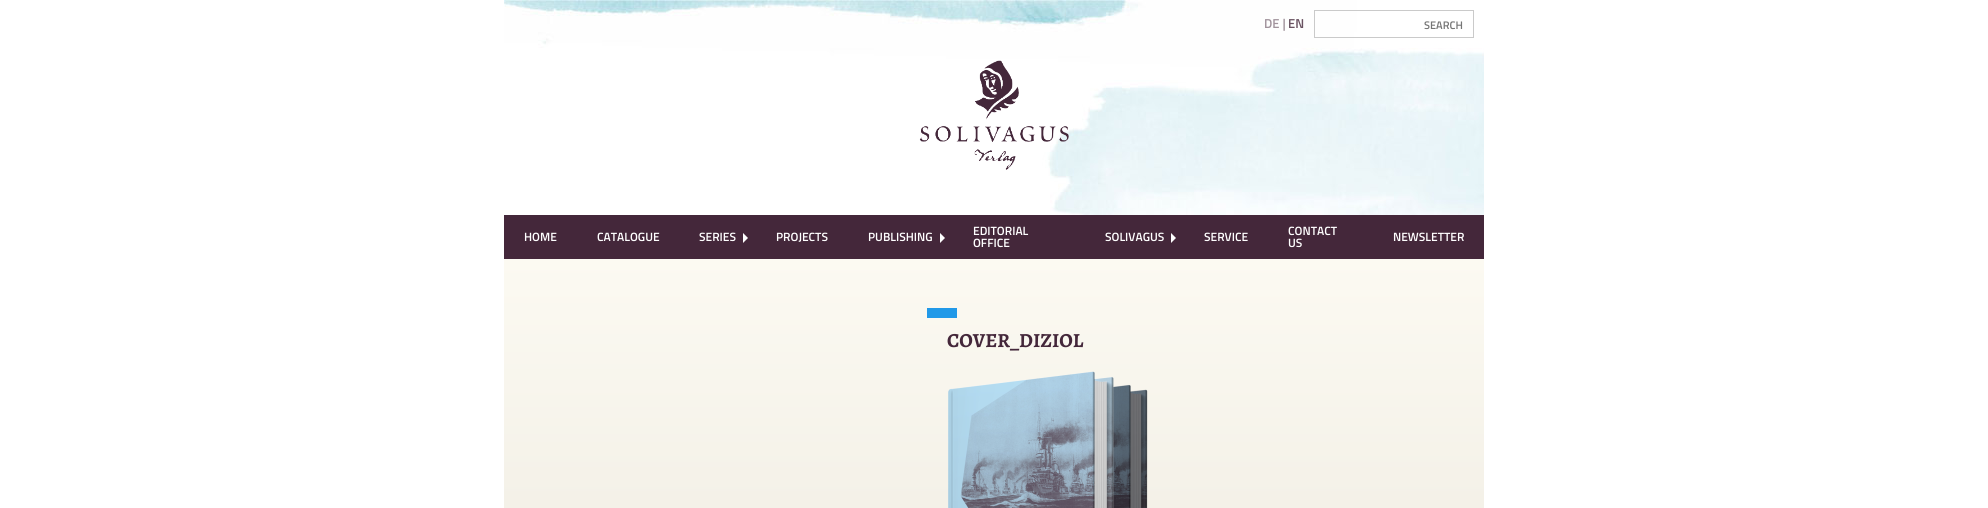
#include <cairo.h>
#include <math.h>
#include <stddef.h>

static cairo_t *ctx;

static void use_color(int r, int g, int b) {
    cairo_set_source_rgb(ctx, r / 255.0, g / 255.0, b / 255.0);
}

static void picture(const char *path, double x, double y, double w, double h) {
    cairo_surface_t *image = cairo_image_surface_create_from_png(path);
    cairo_save(ctx);
    cairo_set_source_surface(ctx, image, x, y);
    cairo_rectangle(ctx, x, y, w, h);
    cairo_fill(ctx);
    cairo_restore(ctx);
    cairo_surface_destroy(image);
}

int main(void) {
    cairo_surface_t *surface = cairo_image_surface_create(CAIRO_FORMAT_RGB24, 1988, 508);
    ctx = cairo_create(surface);
    cairo_font_options_t *options = cairo_font_options_create();
    cairo_font_options_set_hint_metrics(options, CAIRO_HINT_METRICS_OFF);
    cairo_font_options_set_hint_style(options, CAIRO_HINT_STYLE_NONE);
    cairo_set_font_options(ctx, options);
    cairo_set_miter_limit(ctx, 4);
    cairo_pattern_t *gradient;
    use_color(255, 255, 255);
    cairo_paint(ctx);
    picture("img1.png", 504, 0, 980, 215);
    cairo_select_font_face(ctx, "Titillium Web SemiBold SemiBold", CAIRO_FONT_SLANT_NORMAL, CAIRO_FONT_WEIGHT_NORMAL);
    cairo_set_font_size(ctx, 13);
    use_color(161, 147, 156);
    cairo_move_to(ctx, 1264, 28);
    cairo_show_text(ctx, "DE |");
    use_color(105, 82, 97);
    cairo_move_to(ctx, 1288, 28);
    cairo_show_text(ctx, "EN");
    cairo_rectangle(ctx, 1314.5, 10.5, 159, 27);
    use_color(202, 202, 202);
    cairo_set_line_width(ctx, 1);
    cairo_stroke(ctx);
    cairo_set_font_size(ctx, 11);
    use_color(117, 117, 117);
    cairo_move_to(ctx, 1424, 29);
    cairo_show_text(ctx, "SEARCH");
    picture("img2.png", 919, 60, 150, 110);
    use_color(68, 39, 58);
    cairo_rectangle(ctx, 504, 215, 980, 44);
    cairo_fill(ctx);
    cairo_set_font_size(ctx, 12);
    use_color(255, 255, 255);
    cairo_move_to(ctx, 524, 241);
    cairo_show_text(ctx, "HOME");
    cairo_move_to(ctx, 597, 241);
    cairo_show_text(ctx, "CATALOGUE");
    cairo_move_to(ctx, 699, 241);
    cairo_show_text(ctx, "SERIES");
    cairo_new_path(ctx);
    cairo_move_to(ctx, 743, 243);
    cairo_line_to(ctx, 743, 233);
    cairo_line_to(ctx, 748, 238);
    cairo_close_path(ctx);
    cairo_fill(ctx);
    cairo_move_to(ctx, 776, 241);
    cairo_show_text(ctx, "PROJECTS");
    cairo_move_to(ctx, 868, 241);
    cairo_show_text(ctx, "PUBLISHING");
    cairo_new_path(ctx);
    cairo_move_to(ctx, 940, 243);
    cairo_line_to(ctx, 940, 233);
    cairo_line_to(ctx, 945, 238);
    cairo_close_path(ctx);
    cairo_fill(ctx);
    cairo_move_to(ctx, 973, 235);
    cairo_show_text(ctx, "EDITORIAL");
    cairo_move_to(ctx, 973, 247);
    cairo_show_text(ctx, "OFFICE");
    cairo_move_to(ctx, 1105, 241);
    cairo_show_text(ctx, "SOLIVAGUS");
    cairo_new_path(ctx);
    cairo_move_to(ctx, 1171, 243);
    cairo_line_to(ctx, 1171, 233);
    cairo_line_to(ctx, 1176, 238);
    cairo_close_path(ctx);
    cairo_fill(ctx);
    cairo_move_to(ctx, 1204, 241);
    cairo_show_text(ctx, "SERVICE");
    cairo_move_to(ctx, 1288, 235);
    cairo_show_text(ctx, "CONTACT");
    cairo_move_to(ctx, 1288, 247);
    cairo_show_text(ctx, "US");
    cairo_move_to(ctx, 1393, 241);
    cairo_show_text(ctx, "NEWSLETTER");
    gradient = cairo_pattern_create_linear(994, 259, 994, 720);
    cairo_pattern_add_color_stop_rgba(gradient, 0, 0.988, 0.98, 0.949, 1);
    cairo_pattern_add_color_stop_rgba(gradient, 1, 0.929, 0.914, 0.875, 1);
    cairo_set_source(ctx, gradient);
    cairo_pattern_destroy(gradient);
    cairo_rectangle(ctx, 504, 259, 980, 249);
    cairo_fill(ctx);
    use_color(33, 153, 232);
    cairo_rectangle(ctx, 927, 308, 30, 10);
    cairo_fill(ctx);
    cairo_select_font_face(ctx, "Alegreya", CAIRO_FONT_SLANT_NORMAL, CAIRO_FONT_WEIGHT_BOLD);
    cairo_set_font_size(ctx, 20);
    use_color(68, 39, 58);
    cairo_move_to(ctx, 947, 347);
    cairo_show_text(ctx, "COVER_DIZIOL");
    picture("img3.png", 948, 371, 200, 137);
    cairo_surface_write_to_png(surface, "result.png");
    cairo_font_options_destroy(options);
    cairo_destroy(ctx);
    cairo_surface_destroy(surface);
    return 0;
}
